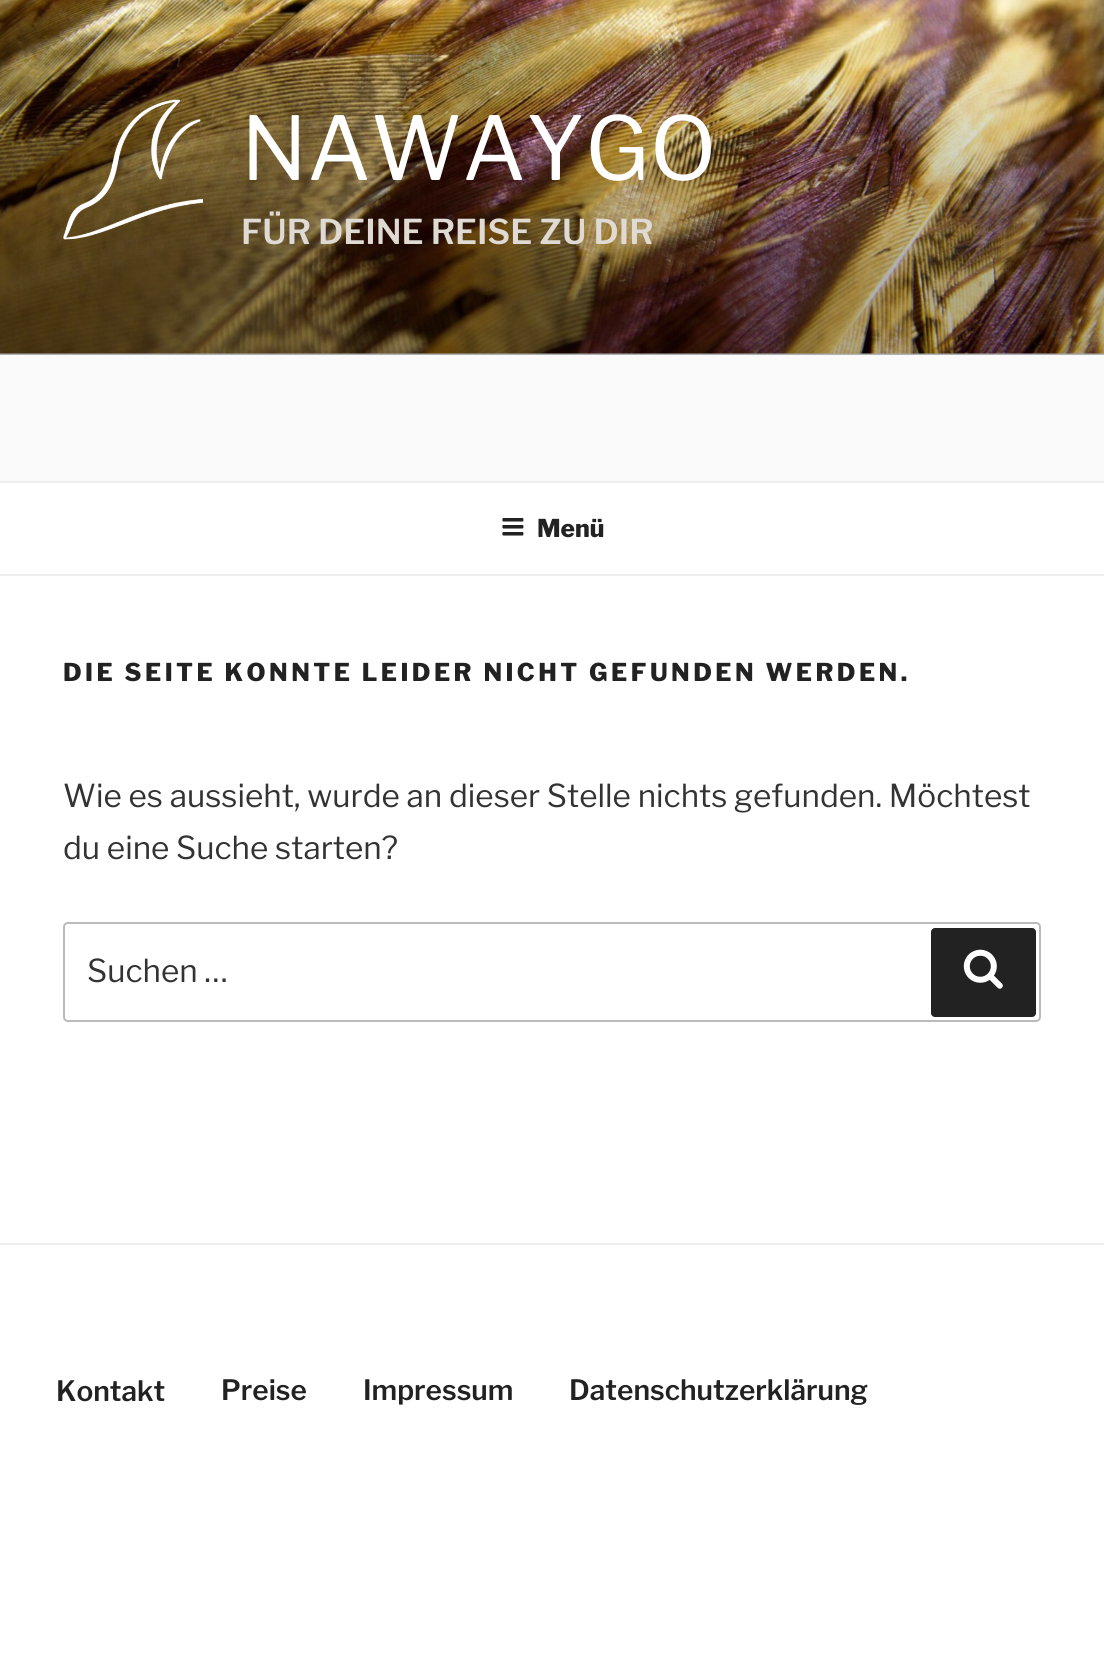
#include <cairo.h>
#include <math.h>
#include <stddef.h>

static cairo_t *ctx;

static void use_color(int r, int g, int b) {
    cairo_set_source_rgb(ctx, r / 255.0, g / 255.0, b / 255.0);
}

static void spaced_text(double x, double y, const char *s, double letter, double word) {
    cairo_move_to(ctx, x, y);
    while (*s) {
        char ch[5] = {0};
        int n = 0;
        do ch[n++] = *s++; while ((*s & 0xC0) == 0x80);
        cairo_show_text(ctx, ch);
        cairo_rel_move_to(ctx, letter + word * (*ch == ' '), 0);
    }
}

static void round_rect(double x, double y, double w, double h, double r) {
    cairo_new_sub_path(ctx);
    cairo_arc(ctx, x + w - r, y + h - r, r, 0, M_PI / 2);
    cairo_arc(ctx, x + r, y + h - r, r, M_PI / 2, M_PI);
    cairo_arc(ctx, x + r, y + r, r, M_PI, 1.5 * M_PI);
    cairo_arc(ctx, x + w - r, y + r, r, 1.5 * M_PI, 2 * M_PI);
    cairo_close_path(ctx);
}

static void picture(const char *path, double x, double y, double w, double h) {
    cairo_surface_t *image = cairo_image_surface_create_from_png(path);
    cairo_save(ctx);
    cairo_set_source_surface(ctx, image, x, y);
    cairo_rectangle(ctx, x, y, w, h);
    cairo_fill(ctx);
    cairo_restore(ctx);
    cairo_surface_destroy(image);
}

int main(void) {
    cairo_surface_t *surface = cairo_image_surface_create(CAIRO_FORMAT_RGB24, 1104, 1661);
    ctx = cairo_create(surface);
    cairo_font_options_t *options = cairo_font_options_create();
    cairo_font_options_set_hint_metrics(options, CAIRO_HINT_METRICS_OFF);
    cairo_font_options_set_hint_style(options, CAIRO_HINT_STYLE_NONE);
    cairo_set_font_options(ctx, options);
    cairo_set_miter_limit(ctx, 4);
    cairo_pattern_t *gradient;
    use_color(255, 255, 255);
    cairo_paint(ctx);
    use_color(250, 250, 250);
    cairo_rectangle(ctx, 0, 353, 1104, 128);
    cairo_fill(ctx);
    picture("img1.png", 0, 0, 1104, 354);
    gradient = cairo_pattern_create_linear(552, 0, 552, 355);
    cairo_pattern_add_color_stop_rgba(gradient, 0, 0, 0, 0, 0);
    cairo_pattern_add_color_stop_rgba(gradient, 0.75, 0, 0, 0, 0.3);
    cairo_pattern_add_color_stop_rgba(gradient, 1, 0, 0, 0, 0.3);
    cairo_set_source(ctx, gradient);
    cairo_pattern_destroy(gradient);
    cairo_rectangle(ctx, 0, 19, 1104, 336);
    cairo_fill(ctx);
    picture("img2.png", 63, 99, 140, 141);
    cairo_select_font_face(ctx, "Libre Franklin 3 Thin", CAIRO_FONT_SLANT_NORMAL, CAIRO_FONT_WEIGHT_NORMAL);
    cairo_set_font_size(ctx, 87.5);
    use_color(255, 255, 255);
    cairo_move_to(ctx, 241, 180);
    cairo_show_text(ctx, "NAWAYGO");
    cairo_select_font_face(ctx, "Libre Franklin Thin", CAIRO_FONT_SLANT_NORMAL, CAIRO_FONT_WEIGHT_NORMAL);
    cairo_set_font_size(ctx, 34.1);
    use_color(223, 218, 211);
    cairo_move_to(ctx, 241, 244);
    cairo_show_text(ctx, "FÜR DEINE REISE ZU DIR");
    use_color(238, 238, 238);
    cairo_rectangle(ctx, 0, 481, 1104, 2);
    cairo_fill(ctx);
    cairo_rectangle(ctx, 0, 574, 1104, 2);
    cairo_fill(ctx);
    picture("img3.png", 502, 518, 22, 18);
    cairo_select_font_face(ctx, "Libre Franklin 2 Thin", CAIRO_FONT_SLANT_NORMAL, CAIRO_FONT_WEIGHT_NORMAL);
    cairo_set_font_size(ctx, 24.5);
    use_color(34, 34, 34);
    cairo_move_to(ctx, 537, 537);
    cairo_show_text(ctx, "Menü");
    spaced_text(63, 681, "DIE SEITE KONNTE LEIDER NICHT GEFUNDEN WERDEN.", 3.45, 0);
    cairo_select_font_face(ctx, "Libre Franklin 3 Thin", CAIRO_FONT_SLANT_NORMAL, CAIRO_FONT_WEIGHT_NORMAL);
    cairo_set_font_size(ctx, 31.5);
    use_color(51, 51, 51);
    cairo_move_to(ctx, 63, 807);
    cairo_show_text(ctx, "Wie es aussieht, wurde an dieser Stelle nichts gefunden. Möchtest");
    cairo_move_to(ctx, 63, 859);
    cairo_show_text(ctx, "du eine Suche starten?");
    round_rect(64, 923, 976, 98, 4);
    use_color(187, 187, 187);
    cairo_stroke(ctx);
    use_color(51, 51, 51);
    cairo_move_to(ctx, 87, 982);
    cairo_show_text(ctx, "Suchen …");
    use_color(34, 34, 34);
    round_rect(931, 928, 105, 89, 4);
    cairo_fill(ctx);
    picture("img4.png", 963, 949, 40, 40);
    use_color(238, 238, 238);
    cairo_rectangle(ctx, 0, 1243, 1104, 2);
    cairo_fill(ctx);
    cairo_select_font_face(ctx, "Libre Franklin Thin", CAIRO_FONT_SLANT_NORMAL, CAIRO_FONT_WEIGHT_NORMAL);
    cairo_set_font_size(ctx, 28);
    use_color(34, 34, 34);
    cairo_move_to(ctx, 56, 1401);
    cairo_show_text(ctx, "Kontakt");
    cairo_move_to(ctx, 221, 1400);
    cairo_show_text(ctx, "Preise");
    cairo_move_to(ctx, 363, 1400);
    cairo_show_text(ctx, "Impressum");
    cairo_move_to(ctx, 569, 1400);
    cairo_show_text(ctx, "Datenschutzerklärung");
    cairo_surface_write_to_png(surface, "result.png");
    cairo_font_options_destroy(options);
    cairo_destroy(ctx);
    cairo_surface_destroy(surface);
    return 0;
}
